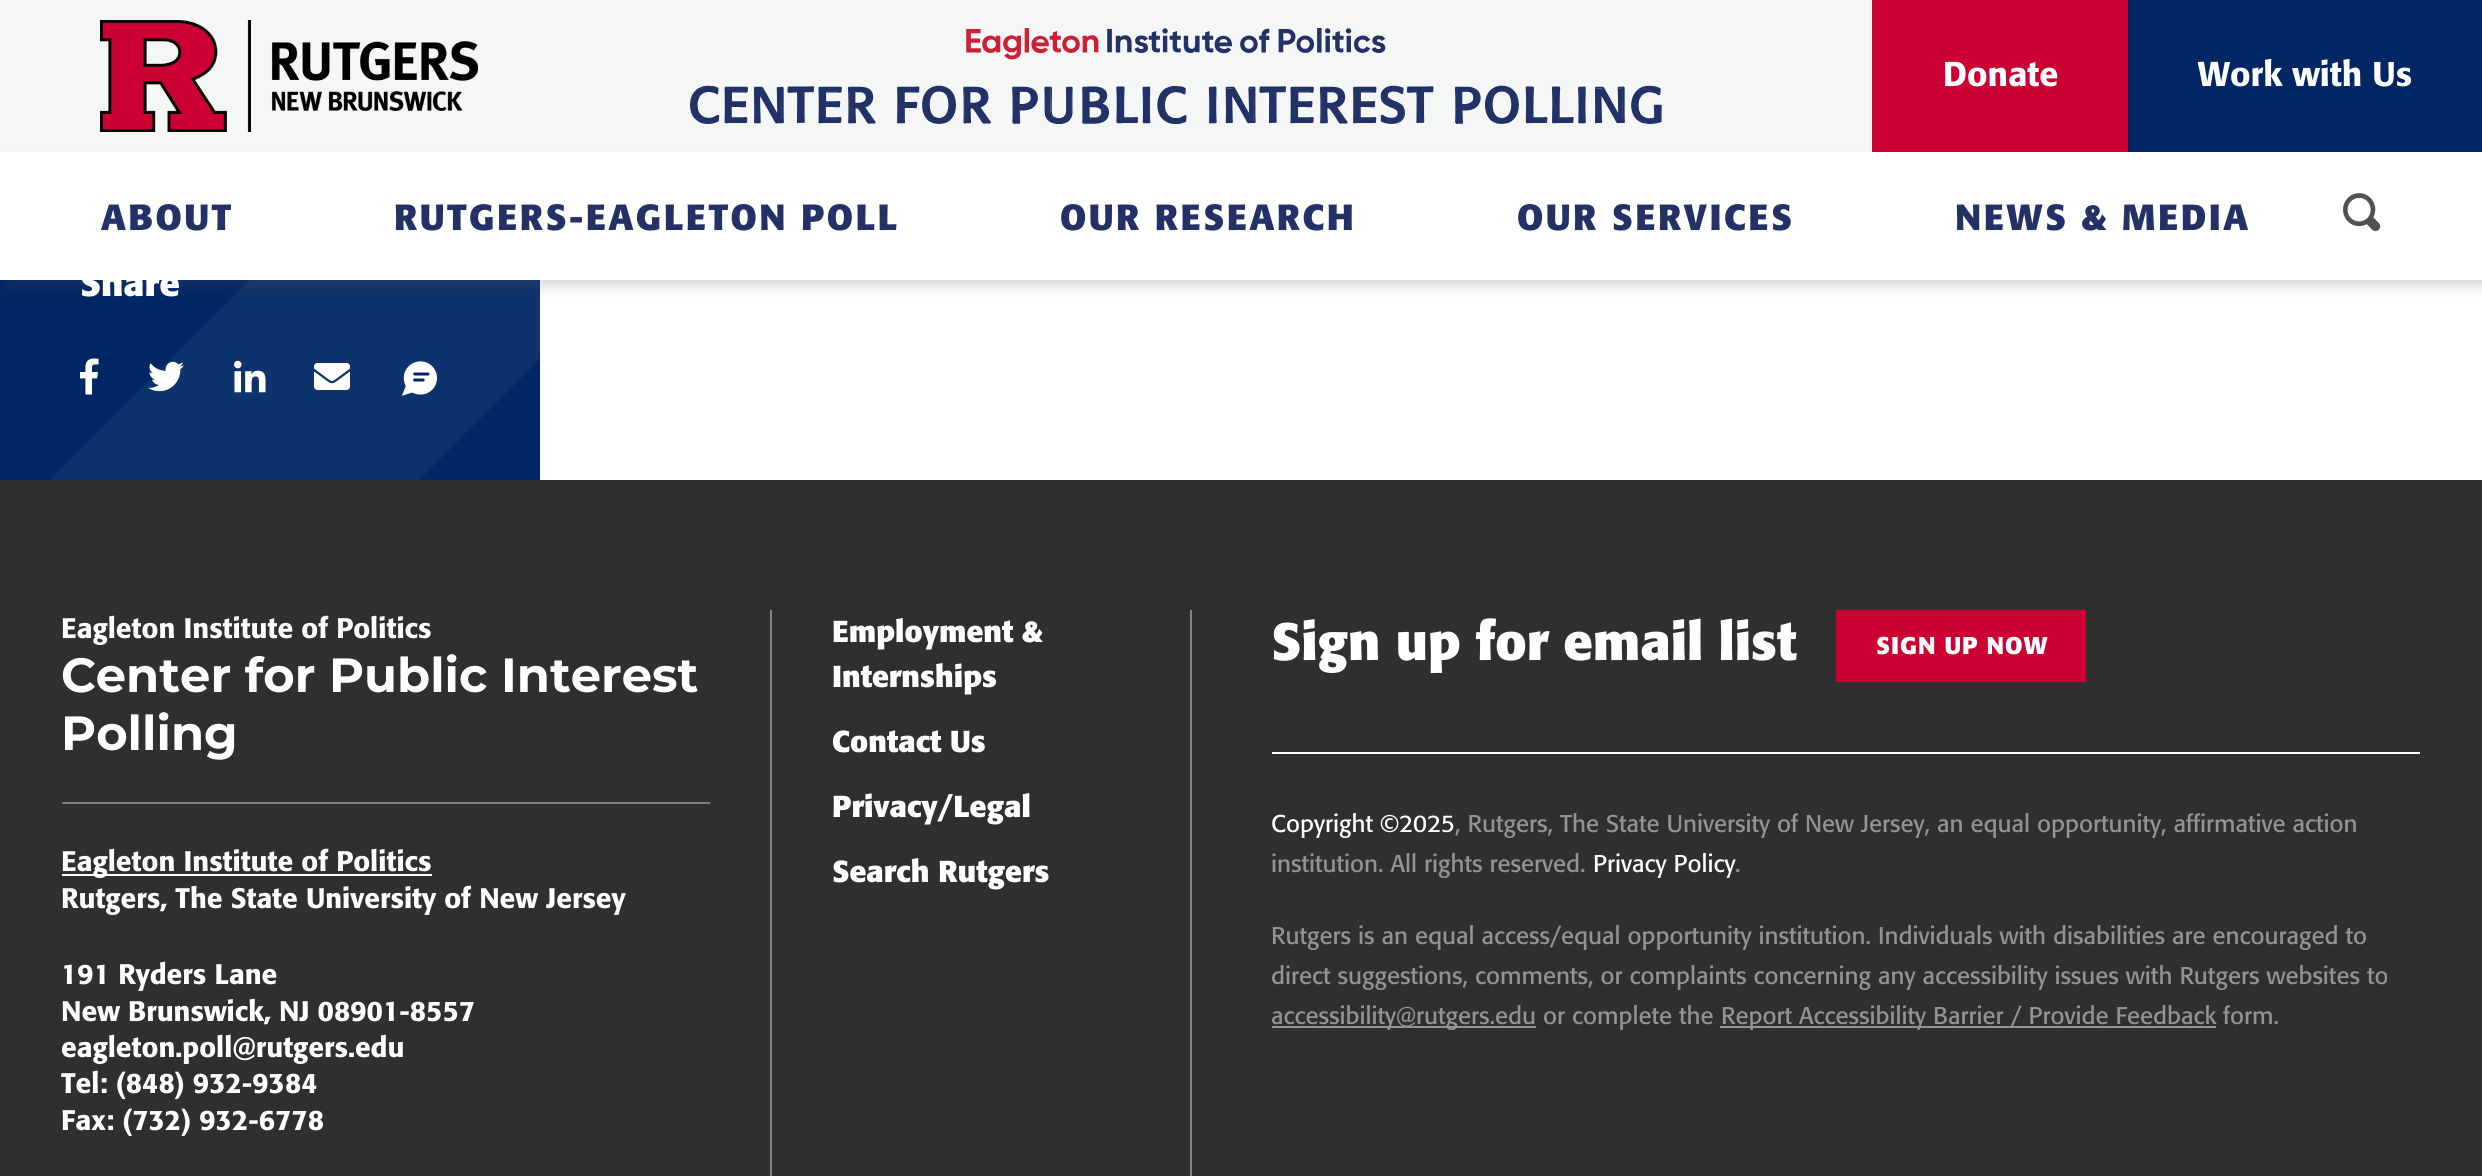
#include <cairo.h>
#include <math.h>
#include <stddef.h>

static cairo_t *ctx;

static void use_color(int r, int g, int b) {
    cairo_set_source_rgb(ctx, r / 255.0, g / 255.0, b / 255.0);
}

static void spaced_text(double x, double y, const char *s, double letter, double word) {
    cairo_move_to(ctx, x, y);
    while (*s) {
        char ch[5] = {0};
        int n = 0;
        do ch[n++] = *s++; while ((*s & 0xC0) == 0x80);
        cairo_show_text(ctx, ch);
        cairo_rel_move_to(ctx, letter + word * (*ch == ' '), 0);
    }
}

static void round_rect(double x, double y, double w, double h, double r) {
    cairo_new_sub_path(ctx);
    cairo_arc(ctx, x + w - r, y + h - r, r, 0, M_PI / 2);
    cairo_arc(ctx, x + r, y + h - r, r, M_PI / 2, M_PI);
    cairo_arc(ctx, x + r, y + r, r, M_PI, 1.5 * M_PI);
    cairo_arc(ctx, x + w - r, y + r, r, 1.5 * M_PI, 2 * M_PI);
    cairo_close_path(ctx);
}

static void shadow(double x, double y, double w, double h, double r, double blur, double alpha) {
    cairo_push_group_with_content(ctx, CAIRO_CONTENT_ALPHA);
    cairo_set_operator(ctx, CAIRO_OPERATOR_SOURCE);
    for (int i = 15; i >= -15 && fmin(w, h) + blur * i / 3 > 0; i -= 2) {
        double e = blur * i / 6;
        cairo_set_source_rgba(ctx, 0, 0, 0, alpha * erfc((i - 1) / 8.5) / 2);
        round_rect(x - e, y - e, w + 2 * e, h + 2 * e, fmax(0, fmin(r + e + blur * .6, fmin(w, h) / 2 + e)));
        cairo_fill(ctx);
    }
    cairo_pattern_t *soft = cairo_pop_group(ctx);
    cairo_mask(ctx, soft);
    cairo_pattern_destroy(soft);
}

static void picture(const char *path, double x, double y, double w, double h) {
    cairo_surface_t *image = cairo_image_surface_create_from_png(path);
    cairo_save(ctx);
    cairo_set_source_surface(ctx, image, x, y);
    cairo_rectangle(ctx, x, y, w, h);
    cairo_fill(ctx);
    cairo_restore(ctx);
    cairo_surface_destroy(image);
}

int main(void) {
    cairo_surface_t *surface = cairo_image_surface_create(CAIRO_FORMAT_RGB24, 2482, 1176);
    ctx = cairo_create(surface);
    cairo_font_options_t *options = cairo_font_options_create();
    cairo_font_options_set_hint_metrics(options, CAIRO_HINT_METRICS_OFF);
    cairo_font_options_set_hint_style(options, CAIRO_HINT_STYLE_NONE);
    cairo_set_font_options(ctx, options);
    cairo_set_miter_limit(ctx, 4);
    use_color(255, 255, 255);
    cairo_paint(ctx);
    use_color(245, 246, 246);
    cairo_rectangle(ctx, 0, 0, 1872, 152);
    cairo_fill(ctx);
    picture("img1.png", 100, 20, 378, 112);
    picture("img2.png", 690, 28, 972, 96);
    use_color(0, 38, 100);
    cairo_rectangle(ctx, 0, 280, 540, 200);
    cairo_fill(ctx);
    picture("img9.png", 50, 280, 490, 200);
    use_color(82, 82, 82);
    shadow(8, 160, 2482, 128, 0, 6, 0.2);
    use_color(204, 0, 51);
    cairo_rectangle(ctx, 1872, 0, 256, 152);
    cairo_fill(ctx);
    cairo_select_font_face(ctx, "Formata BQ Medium", CAIRO_FONT_SLANT_NORMAL, CAIRO_FONT_WEIGHT_NORMAL);
    cairo_set_font_size(ctx, 34);
    use_color(255, 255, 255);
    cairo_move_to(ctx, 1943, 86);
    cairo_show_text(ctx, "Donate");
    use_color(0, 38, 100);
    cairo_rectangle(ctx, 2128, 0, 354, 152);
    cairo_fill(ctx);
    use_color(255, 255, 255);
    cairo_move_to(ctx, 2198, 86);
    cairo_show_text(ctx, "Work with Us");
    cairo_rectangle(ctx, 0, 152, 2482, 128);
    cairo_fill(ctx);
    cairo_select_font_face(ctx, "Formata BQ", CAIRO_FONT_SLANT_NORMAL, CAIRO_FONT_WEIGHT_BOLD);
    cairo_set_font_size(ctx, 36);
    use_color(35, 49, 103);
    spaced_text(101, 230, "ABOUT", 2.5, 0);
    spaced_text(394, 230, "RUTGERS-EAGLETON POLL", 2.5, 0);
    spaced_text(1060, 230, "OUR RESEARCH", 2.5, 0);
    spaced_text(1517, 230, "OUR SERVICES", 2.5, 0);
    spaced_text(1955, 230, "NEWS & MEDIA", 2.5, 0);
    picture("img3.png", 2343, 193, 38, 39);
    use_color(255, 255, 255);
    cairo_move_to(ctx, 80, 296);
    cairo_show_text(ctx, "Share");
    picture("img4.png", 80, 358, 19, 37);
    picture("img5.png", 148, 361, 36, 31);
    picture("img6.png", 234, 360, 32, 33);
    picture("img7.png", 314, 363, 36, 27);
    picture("img8.png", 402, 361, 35, 35);
    use_color(47, 47, 47);
    cairo_rectangle(ctx, 0, 480, 2482, 696);
    cairo_fill(ctx);
    cairo_select_font_face(ctx, "Formata BQ Medium", CAIRO_FONT_SLANT_NORMAL, CAIRO_FONT_WEIGHT_NORMAL);
    cairo_set_font_size(ctx, 28);
    use_color(255, 255, 255);
    cairo_move_to(ctx, 61, 638);
    cairo_show_text(ctx, "Eagleton Institute of Politics");
    cairo_select_font_face(ctx, "Montserrat", CAIRO_FONT_SLANT_NORMAL, CAIRO_FONT_WEIGHT_BOLD);
    cairo_set_font_size(ctx, 48);
    cairo_move_to(ctx, 61, 692);
    cairo_show_text(ctx, "Center for Public Interest");
    cairo_move_to(ctx, 61, 750);
    cairo_show_text(ctx, "Polling");
    use_color(126, 126, 126);
    cairo_rectangle(ctx, 62, 802, 648, 2);
    cairo_fill(ctx);
    use_color(255, 255, 255);
    cairo_rectangle(ctx, 62, 874, 370, 2);
    cairo_fill(ctx);
    cairo_select_font_face(ctx, "Formata BQ Medium", CAIRO_FONT_SLANT_NORMAL, CAIRO_FONT_WEIGHT_NORMAL);
    cairo_set_font_size(ctx, 28);
    cairo_move_to(ctx, 61, 871);
    cairo_show_text(ctx, "Eagleton Institute of Politics");
    cairo_move_to(ctx, 61, 908);
    cairo_show_text(ctx, "Rutgers, The State University of New Jersey");
    cairo_move_to(ctx, 61, 984);
    cairo_show_text(ctx, "191 Ryders Lane");
    cairo_move_to(ctx, 61, 1021);
    cairo_show_text(ctx, "New Brunswick, NJ 08901-8557");
    cairo_move_to(ctx, 61, 1057);
    cairo_show_text(ctx, "eagleton.poll@rutgers.edu");
    cairo_move_to(ctx, 61, 1093);
    cairo_show_text(ctx, "Tel: (848) 932-9384");
    cairo_move_to(ctx, 61, 1130);
    cairo_show_text(ctx, "Fax: (732) 932-6778");
    use_color(132, 132, 132);
    cairo_rectangle(ctx, 1190, 610, 2, 566);
    cairo_fill(ctx);
    cairo_rectangle(ctx, 770, 610, 2, 566);
    cairo_fill(ctx);
    cairo_select_font_face(ctx, "Formata BQ", CAIRO_FONT_SLANT_NORMAL, CAIRO_FONT_WEIGHT_BOLD);
    cairo_set_font_size(ctx, 30);
    use_color(255, 255, 255);
    cairo_move_to(ctx, 832, 642);
    cairo_show_text(ctx, "Employment &");
    cairo_move_to(ctx, 832, 687);
    cairo_show_text(ctx, "Internships");
    cairo_move_to(ctx, 832, 752);
    cairo_show_text(ctx, "Contact Us");
    cairo_move_to(ctx, 832, 817);
    cairo_show_text(ctx, "Privacy/Legal");
    cairo_move_to(ctx, 832, 882);
    cairo_show_text(ctx, "Search Rutgers");
    cairo_set_font_size(ctx, 52);
    cairo_move_to(ctx, 1271, 660);
    cairo_show_text(ctx, "Sign up for email list");
    use_color(204, 0, 51);
    cairo_rectangle(ctx, 1836, 610, 250, 72);
    cairo_fill(ctx);
    cairo_set_font_size(ctx, 24);
    use_color(255, 255, 255);
    spaced_text(1876, 654, "SIGN UP NOW", 1, 0);
    cairo_rectangle(ctx, 1272, 752, 1148, 2);
    cairo_fill(ctx);
    cairo_select_font_face(ctx, "Formata BQ", CAIRO_FONT_SLANT_NORMAL, CAIRO_FONT_WEIGHT_NORMAL);
    cairo_move_to(ctx, 1271, 832);
    cairo_show_text(ctx, "Copyright ©2025");
    use_color(145, 148, 151);
    cairo_move_to(ctx, 1455, 832);
    cairo_show_text(ctx, ", Rutgers, The State University of New Jersey, an equal opportunity, affirmative action");
    cairo_move_to(ctx, 1271, 872);
    cairo_show_text(ctx, "institution. All rights reserved.");
    use_color(255, 255, 255);
    cairo_move_to(ctx, 1593, 872);
    cairo_show_text(ctx, "Privacy Policy");
    use_color(145, 148, 151);
    cairo_move_to(ctx, 1735, 872);
    cairo_show_text(ctx, ".");
    cairo_move_to(ctx, 1271, 944);
    cairo_show_text(ctx, "Rutgers is an equal access/equal opportunity institution. Individuals with disabilities are encouraged to");
    cairo_move_to(ctx, 1271, 984);
    cairo_show_text(ctx, "direct suggestions, comments, or complaints concerning any accessibility issues with Rutgers websites to");
    cairo_rectangle(ctx, 1272, 1026, 264, 2);
    cairo_fill(ctx);
    cairo_move_to(ctx, 1271, 1024);
    cairo_show_text(ctx, "accessibility@rutgers.edu");
    cairo_move_to(ctx, 1543, 1024);
    cairo_show_text(ctx, "or complete the");
    cairo_rectangle(ctx, 1720, 1026, 496, 2);
    cairo_fill(ctx);
    cairo_move_to(ctx, 1721, 1024);
    cairo_show_text(ctx, "Report Accessibility Barrier / Provide Feedback");
    cairo_move_to(ctx, 2223, 1024);
    cairo_show_text(ctx, "form.");
    cairo_surface_write_to_png(surface, "result.png");
    cairo_font_options_destroy(options);
    cairo_destroy(ctx);
    cairo_surface_destroy(surface);
    return 0;
}
